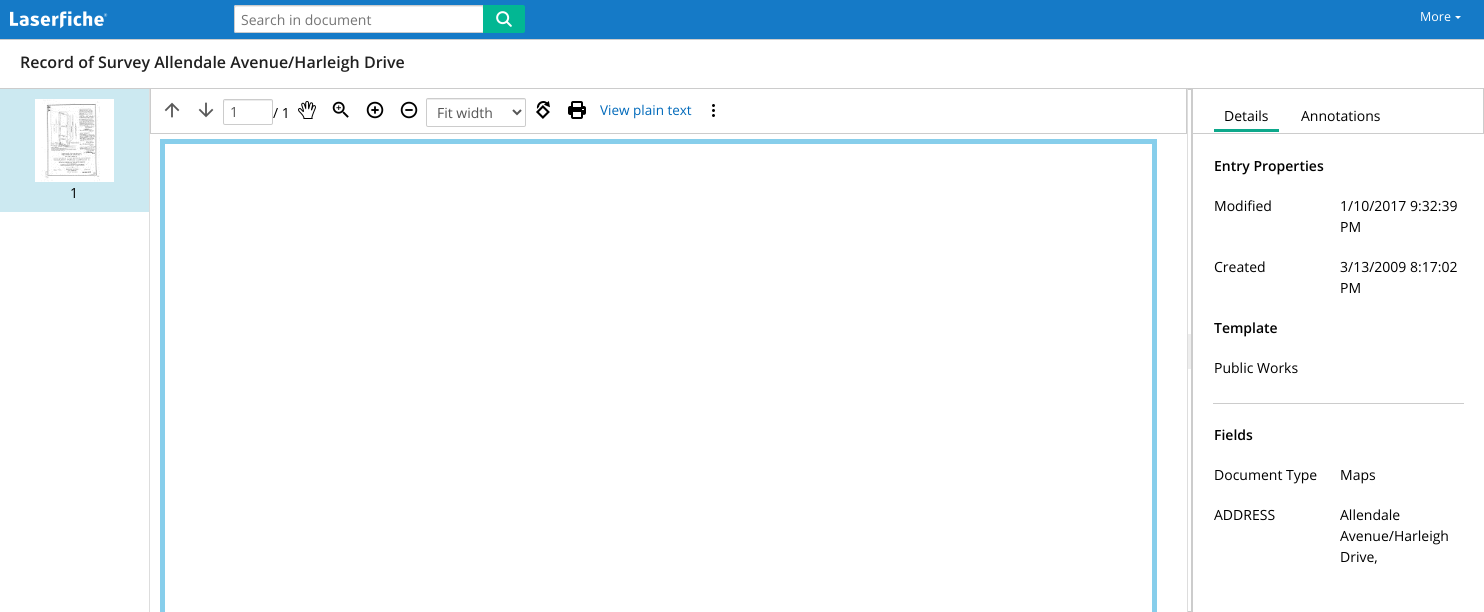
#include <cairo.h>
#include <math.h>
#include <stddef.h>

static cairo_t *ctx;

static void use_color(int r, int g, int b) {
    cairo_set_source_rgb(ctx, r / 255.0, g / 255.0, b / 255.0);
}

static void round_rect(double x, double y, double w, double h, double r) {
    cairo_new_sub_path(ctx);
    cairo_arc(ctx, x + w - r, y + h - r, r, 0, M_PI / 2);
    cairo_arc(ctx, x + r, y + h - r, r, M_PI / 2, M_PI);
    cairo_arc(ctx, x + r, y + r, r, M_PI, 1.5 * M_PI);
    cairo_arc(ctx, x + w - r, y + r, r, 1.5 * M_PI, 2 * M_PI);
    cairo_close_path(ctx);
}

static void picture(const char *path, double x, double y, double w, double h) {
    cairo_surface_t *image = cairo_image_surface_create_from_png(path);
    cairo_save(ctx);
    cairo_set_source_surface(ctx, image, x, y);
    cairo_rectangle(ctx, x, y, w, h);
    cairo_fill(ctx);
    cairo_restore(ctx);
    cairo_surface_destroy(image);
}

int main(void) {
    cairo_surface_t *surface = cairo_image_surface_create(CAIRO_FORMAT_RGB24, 1484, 612);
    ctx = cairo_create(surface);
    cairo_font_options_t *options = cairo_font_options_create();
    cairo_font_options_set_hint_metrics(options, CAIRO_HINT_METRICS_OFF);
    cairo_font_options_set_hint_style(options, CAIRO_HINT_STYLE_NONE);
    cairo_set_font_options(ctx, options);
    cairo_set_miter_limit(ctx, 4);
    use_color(255, 255, 255);
    cairo_paint(ctx);
    use_color(21, 122, 199);
    cairo_rectangle(ctx, 0, 0, 1484, 39);
    cairo_fill(ctx);
    use_color(204, 204, 204);
    cairo_rectangle(ctx, 0, 39, 1484, 1);
    cairo_fill(ctx);
    picture("img1.png", 10, 11, 98, 18);
    use_color(255, 255, 255);
    round_rect(234, 5, 250, 28, 2);
    cairo_fill(ctx);
    use_color(236, 236, 236);
    cairo_new_path(ctx);
    cairo_move_to(ctx, 236, 7);
    cairo_line_to(ctx, 482, 7);
    cairo_line_to(ctx, 483, 9);
    cairo_line_to(ctx, 483, 7);
    cairo_curve_to(ctx, 483, 6, 483, 6, 482, 6);
    cairo_line_to(ctx, 236, 6);
    cairo_curve_to(ctx, 235, 6, 235, 6, 235, 7);
    cairo_line_to(ctx, 235, 8);
    cairo_close_path(ctx);
    cairo_fill(ctx);
    round_rect(234.5, 5.5, 249, 27, 1.5);
    use_color(204, 204, 204);
    cairo_set_line_width(ctx, 1);
    cairo_stroke(ctx);
    cairo_select_font_face(ctx, "Open Sans", CAIRO_FONT_SLANT_NORMAL, CAIRO_FONT_WEIGHT_NORMAL);
    cairo_set_font_size(ctx, 14);
    use_color(117, 117, 117);
    cairo_move_to(ctx, 241, 25);
    cairo_show_text(ctx, "Search in document");
    use_color(2, 183, 147);
    cairo_new_path(ctx);
    cairo_move_to(ctx, 483, 5);
    cairo_line_to(ctx, 523, 5);
    cairo_curve_to(ctx, 524, 5, 525, 6, 525, 7);
    cairo_line_to(ctx, 525, 31);
    cairo_curve_to(ctx, 525, 32, 524, 33, 523, 33);
    cairo_line_to(ctx, 483, 33);
    cairo_close_path(ctx);
    cairo_fill(ctx);
    picture("img2.png", 496, 11, 16, 16);
    cairo_set_font_size(ctx, 12.5);
    use_color(255, 255, 255);
    cairo_move_to(ctx, 1420, 21);
    cairo_show_text(ctx, "More");
    cairo_new_path(ctx);
    cairo_move_to(ctx, 1455, 16);
    cairo_line_to(ctx, 1461, 16);
    cairo_line_to(ctx, 1458, 19);
    cairo_close_path(ctx);
    cairo_fill(ctx);
    use_color(204, 204, 204);
    cairo_rectangle(ctx, 0, 88, 1484, 1);
    cairo_fill(ctx);
    cairo_select_font_face(ctx, "Open Sans SemiBold", CAIRO_FONT_SLANT_NORMAL, CAIRO_FONT_WEIGHT_NORMAL);
    cairo_set_font_size(ctx, 16);
    use_color(32, 32, 32);
    cairo_move_to(ctx, 20, 68);
    cairo_show_text(ctx, "Record of Survey Allendale Avenue/Harleigh Drive");
    use_color(204, 204, 204);
    cairo_rectangle(ctx, 1186, 89, 1, 45);
    cairo_fill(ctx);
    cairo_rectangle(ctx, 150, 133, 1037, 1);
    cairo_fill(ctx);
    cairo_rectangle(ctx, 150, 89, 1, 45);
    cairo_fill(ctx);
    picture("img3.png", 164, 102, 16, 16);
    picture("img4.png", 198, 102, 16, 16);
    use_color(236, 236, 236);
    cairo_new_path(ctx);
    cairo_move_to(ctx, 225, 101);
    cairo_line_to(ctx, 271, 101);
    cairo_line_to(ctx, 272, 102);
    cairo_curve_to(ctx, 272, 98, 269, 100, 263, 100);
    cairo_line_to(ctx, 233, 100);
    cairo_curve_to(ctx, 226, 100, 224, 98, 224, 103);
    cairo_close_path(ctx);
    cairo_fill(ctx);
    round_rect(223.5, 99.5, 49, 25, 1.5);
    use_color(204, 204, 204);
    cairo_stroke(ctx);
    cairo_select_font_face(ctx, "Open Sans", CAIRO_FONT_SLANT_NORMAL, CAIRO_FONT_WEIGHT_NORMAL);
    cairo_set_font_size(ctx, 14);
    use_color(85, 85, 85);
    cairo_move_to(ctx, 230, 117);
    cairo_show_text(ctx, "1");
    use_color(0, 0, 0);
    cairo_move_to(ctx, 273, 118);
    cairo_show_text(ctx, "/ 1");
    picture("img5.png", 298, 101, 18, 18);
    picture("img6.png", 332, 101, 17, 17);
    picture("img7.png", 366, 101, 18, 18);
    picture("img8.png", 400, 101, 18, 18);
    use_color(236, 236, 236);
    cairo_new_path(ctx);
    cairo_move_to(ctx, 428, 100);
    cairo_line_to(ctx, 524, 100);
    cairo_curve_to(ctx, 525, 100, 525, 100, 525, 101);
    cairo_curve_to(ctx, 525, 100, 525, 99, 524, 99);
    cairo_line_to(ctx, 428, 99);
    cairo_curve_to(ctx, 427, 99, 427, 100, 427, 101);
    cairo_curve_to(ctx, 427, 100, 427, 100, 428, 100);
    cairo_close_path(ctx);
    cairo_fill(ctx);
    round_rect(426.5, 98.5, 99, 28, 1.5);
    use_color(204, 204, 204);
    cairo_stroke(ctx);
    cairo_new_path(ctx);
    cairo_move_to(ctx, 513, 110);
    cairo_line_to(ctx, 517, 114);
    cairo_line_to(ctx, 521, 110);
    use_color(85, 85, 85);
    cairo_set_line_width(ctx, 2);
    cairo_stroke(ctx);
    cairo_move_to(ctx, 437, 118);
    cairo_show_text(ctx, "Fit width");
    picture("img9.png", 536, 101, 14, 18);
    picture("img10.png", 568, 101, 18, 18);
    cairo_set_font_size(ctx, 13.5);
    use_color(0, 105, 186);
    cairo_move_to(ctx, 600, 115);
    cairo_show_text(ctx, "View plain text");
    picture("img11.png", 712, 104, 3, 13);
    cairo_rectangle(ctx, 162.5, 141.5, 992, 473);
    use_color(135, 206, 235);
    cairo_set_line_width(ctx, 5);
    cairo_stroke(ctx);
    use_color(221, 221, 221);
    cairo_rectangle(ctx, 149, 89, 1, 523);
    cairo_fill(ctx);
    use_color(204, 233, 241);
    cairo_rectangle(ctx, 0, 89, 149, 123);
    cairo_fill(ctx);
    picture("img12.png", 35, 99, 79, 83);
    cairo_set_font_size(ctx, 14);
    use_color(0, 0, 0);
    cairo_move_to(ctx, 70, 198);
    cairo_show_text(ctx, "1");
    use_color(204, 204, 204);
    cairo_rectangle(ctx, 1187, 89, 5, 1);
    cairo_fill(ctx);
    cairo_rectangle(ctx, 1191, 89, 1, 523);
    cairo_fill(ctx);
    cairo_rectangle(ctx, 1187, 611, 5, 1);
    cairo_fill(ctx);
    use_color(221, 221, 221);
    cairo_rectangle(ctx, 1187, 89, 1, 523);
    cairo_fill(ctx);
    use_color(238, 238, 238);
    cairo_rectangle(ctx, 1188, 334, 3, 35);
    cairo_fill(ctx);
    use_color(204, 204, 204);
    cairo_rectangle(ctx, 1192, 89, 1, 523);
    cairo_fill(ctx);
    cairo_rectangle(ctx, 1483, 89, 1, 44);
    cairo_fill(ctx);
    use_color(0, 0, 0);
    cairo_move_to(ctx, 1224, 121);
    cairo_show_text(ctx, "Details");
    use_color(13, 168, 139);
    cairo_rectangle(ctx, 1214, 129, 65, 3);
    cairo_fill(ctx);
    use_color(0, 0, 0);
    cairo_move_to(ctx, 1301, 121);
    cairo_show_text(ctx, "Annotations");
    use_color(204, 204, 204);
    cairo_rectangle(ctx, 1193, 133, 291, 1);
    cairo_fill(ctx);
    cairo_select_font_face(ctx, "Open Sans SemiBold", CAIRO_FONT_SLANT_NORMAL, CAIRO_FONT_WEIGHT_NORMAL);
    use_color(0, 0, 0);
    cairo_move_to(ctx, 1214, 171);
    cairo_show_text(ctx, "Entry Properties");
    cairo_select_font_face(ctx, "Open Sans", CAIRO_FONT_SLANT_NORMAL, CAIRO_FONT_WEIGHT_NORMAL);
    cairo_move_to(ctx, 1214, 211);
    cairo_show_text(ctx, "Modified");
    cairo_move_to(ctx, 1340, 211);
    cairo_show_text(ctx, "1/10/2017 9:32:39");
    cairo_move_to(ctx, 1340, 232);
    cairo_show_text(ctx, "PM");
    cairo_move_to(ctx, 1214, 272);
    cairo_show_text(ctx, "Created");
    cairo_move_to(ctx, 1340, 272);
    cairo_show_text(ctx, "3/13/2009 8:17:02");
    cairo_move_to(ctx, 1340, 293);
    cairo_show_text(ctx, "PM");
    cairo_select_font_face(ctx, "Open Sans SemiBold", CAIRO_FONT_SLANT_NORMAL, CAIRO_FONT_WEIGHT_NORMAL);
    cairo_move_to(ctx, 1214, 333);
    cairo_show_text(ctx, "Template");
    cairo_select_font_face(ctx, "Open Sans", CAIRO_FONT_SLANT_NORMAL, CAIRO_FONT_WEIGHT_NORMAL);
    cairo_move_to(ctx, 1214, 373);
    cairo_show_text(ctx, "Public Works");
    use_color(204, 204, 204);
    cairo_rectangle(ctx, 1213, 403, 251, 1);
    cairo_fill(ctx);
    cairo_select_font_face(ctx, "Open Sans SemiBold", CAIRO_FONT_SLANT_NORMAL, CAIRO_FONT_WEIGHT_NORMAL);
    use_color(0, 0, 0);
    cairo_move_to(ctx, 1214, 440);
    cairo_show_text(ctx, "Fields");
    cairo_select_font_face(ctx, "Open Sans", CAIRO_FONT_SLANT_NORMAL, CAIRO_FONT_WEIGHT_NORMAL);
    cairo_move_to(ctx, 1214, 480);
    cairo_show_text(ctx, "Document Type");
    cairo_move_to(ctx, 1340, 480);
    cairo_show_text(ctx, "Maps");
    cairo_move_to(ctx, 1214, 520);
    cairo_show_text(ctx, "ADDRESS");
    cairo_move_to(ctx, 1340, 520);
    cairo_show_text(ctx, "Allendale");
    cairo_move_to(ctx, 1340, 541);
    cairo_show_text(ctx, "Avenue/Harleigh");
    cairo_move_to(ctx, 1340, 562);
    cairo_show_text(ctx, "Drive,");
    cairo_surface_write_to_png(surface, "result.png");
    cairo_font_options_destroy(options);
    cairo_destroy(ctx);
    cairo_surface_destroy(surface);
    return 0;
}
